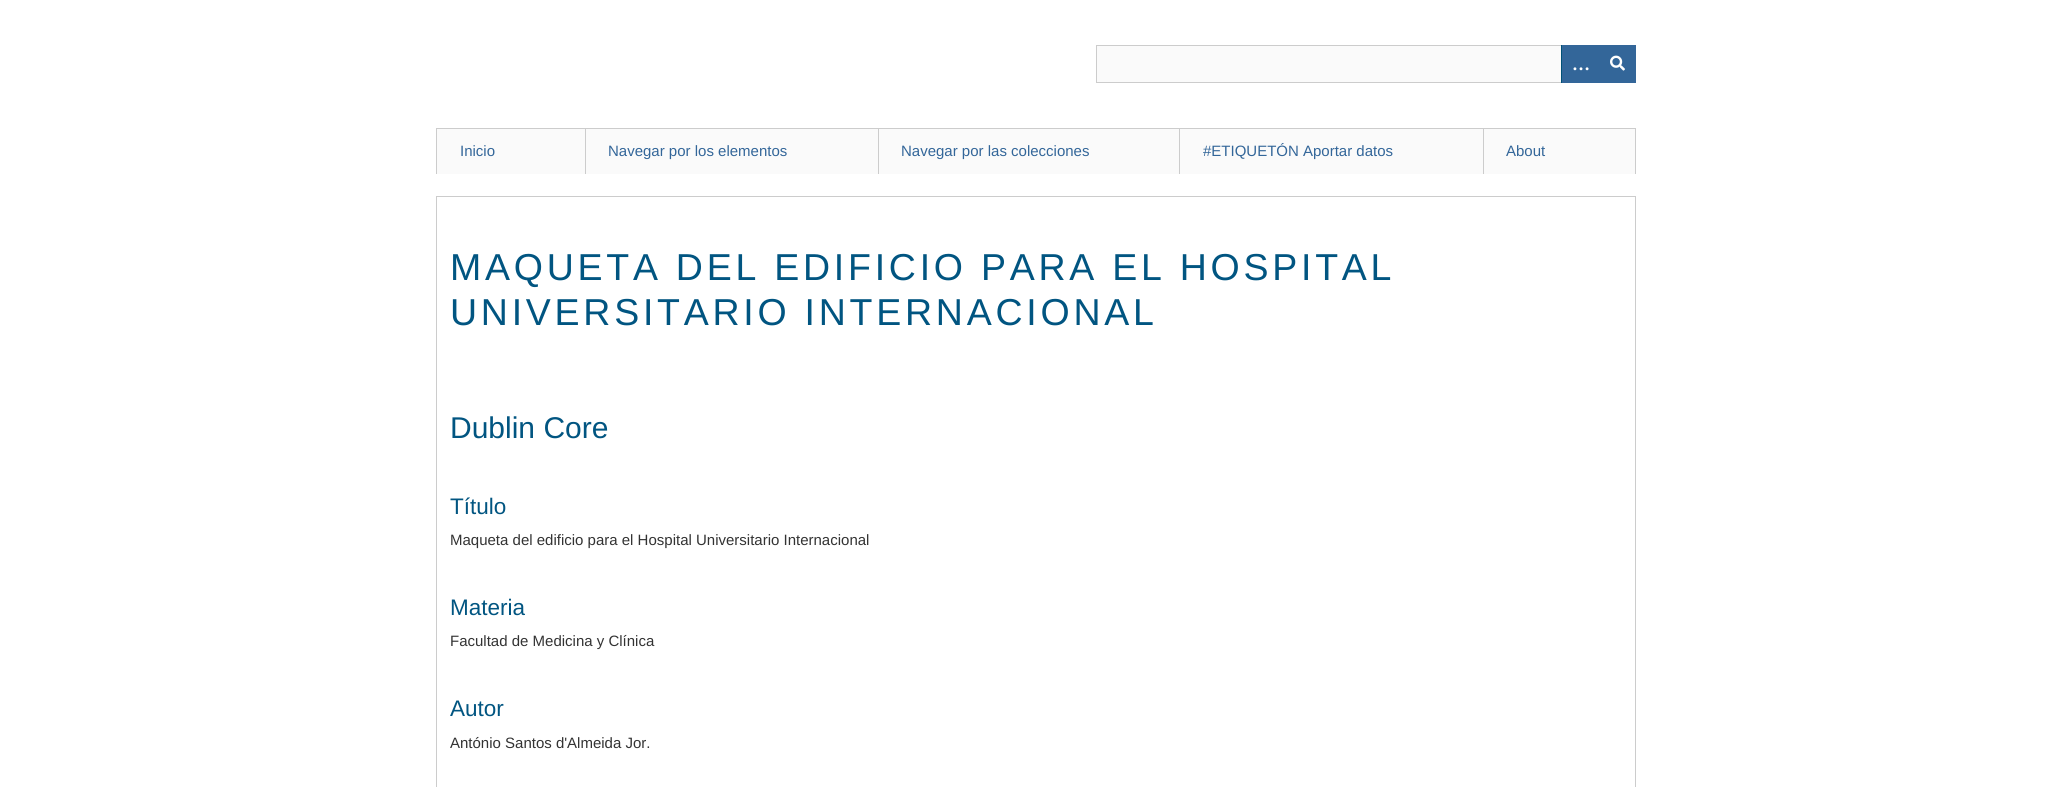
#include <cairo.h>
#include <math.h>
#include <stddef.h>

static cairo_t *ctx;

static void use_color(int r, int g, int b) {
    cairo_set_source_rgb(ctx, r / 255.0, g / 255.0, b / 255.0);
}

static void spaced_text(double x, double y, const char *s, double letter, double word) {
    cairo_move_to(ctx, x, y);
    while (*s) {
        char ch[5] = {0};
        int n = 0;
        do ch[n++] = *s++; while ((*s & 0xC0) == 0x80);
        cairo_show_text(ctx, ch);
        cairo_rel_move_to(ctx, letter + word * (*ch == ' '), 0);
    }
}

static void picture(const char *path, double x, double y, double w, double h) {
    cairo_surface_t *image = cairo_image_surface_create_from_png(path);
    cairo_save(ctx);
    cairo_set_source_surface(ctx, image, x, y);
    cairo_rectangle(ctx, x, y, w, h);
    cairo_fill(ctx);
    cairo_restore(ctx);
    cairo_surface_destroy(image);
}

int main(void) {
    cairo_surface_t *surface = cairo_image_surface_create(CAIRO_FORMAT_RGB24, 2072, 787);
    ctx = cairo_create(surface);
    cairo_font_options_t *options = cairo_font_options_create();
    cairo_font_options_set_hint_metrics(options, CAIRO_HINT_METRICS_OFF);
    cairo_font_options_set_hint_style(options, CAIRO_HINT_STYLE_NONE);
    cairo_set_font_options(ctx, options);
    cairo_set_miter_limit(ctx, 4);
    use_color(255, 255, 255);
    cairo_paint(ctx);
    use_color(250, 250, 250);
    cairo_rectangle(ctx, 1097, 46, 464, 36);
    cairo_fill(ctx);
    cairo_rectangle(ctx, 1096.5, 45.5, 539, 37);
    use_color(204, 204, 204);
    cairo_set_line_width(ctx, 1);
    cairo_stroke(ctx);
    use_color(51, 102, 153);
    cairo_rectangle(ctx, 1562, 45, 74, 38);
    cairo_fill(ctx);
    use_color(0, 81, 119);
    cairo_rectangle(ctx, 1561, 45, 1, 38);
    cairo_fill(ctx);
    cairo_select_font_face(ctx, "Liberation Serif", CAIRO_FONT_SLANT_NORMAL, CAIRO_FONT_WEIGHT_BOLD);
    cairo_set_font_size(ctx, 18);
    use_color(255, 255, 255);
    cairo_move_to(ctx, 1572, 70);
    cairo_show_text(ctx, "…");
    picture("img1.png", 1610, 55, 15, 16);
    use_color(204, 204, 204);
    cairo_rectangle(ctx, 1635, 128, 1, 46);
    cairo_fill(ctx);
    use_color(250, 250, 250);
    cairo_rectangle(ctx, 437, 129, 148, 45);
    cairo_fill(ctx);
    use_color(204, 204, 204);
    cairo_rectangle(ctx, 436, 128, 1199, 1);
    cairo_fill(ctx);
    cairo_rectangle(ctx, 436, 128, 1, 46);
    cairo_fill(ctx);
    cairo_select_font_face(ctx, "Liberation Sans", CAIRO_FONT_SLANT_NORMAL, CAIRO_FONT_WEIGHT_NORMAL);
    cairo_set_font_size(ctx, 15);
    use_color(51, 102, 153);
    cairo_move_to(ctx, 460, 156);
    cairo_show_text(ctx, "Inicio");
    use_color(250, 250, 250);
    cairo_rectangle(ctx, 586, 129, 292, 45);
    cairo_fill(ctx);
    use_color(204, 204, 204);
    cairo_rectangle(ctx, 585, 128, 1, 46);
    cairo_fill(ctx);
    use_color(51, 102, 153);
    cairo_move_to(ctx, 608, 156);
    cairo_show_text(ctx, "Navegar por los elementos");
    use_color(250, 250, 250);
    cairo_rectangle(ctx, 879, 129, 300, 45);
    cairo_fill(ctx);
    use_color(204, 204, 204);
    cairo_rectangle(ctx, 878, 128, 1, 46);
    cairo_fill(ctx);
    use_color(51, 102, 153);
    cairo_move_to(ctx, 901, 156);
    cairo_show_text(ctx, "Navegar por las colecciones");
    use_color(250, 250, 250);
    cairo_rectangle(ctx, 1180, 129, 303, 45);
    cairo_fill(ctx);
    use_color(204, 204, 204);
    cairo_rectangle(ctx, 1179, 128, 1, 46);
    cairo_fill(ctx);
    use_color(51, 102, 153);
    cairo_move_to(ctx, 1203, 156);
    cairo_show_text(ctx, "#ETIQUETÓN Aportar datos");
    use_color(250, 250, 250);
    cairo_rectangle(ctx, 1484, 129, 151, 45);
    cairo_fill(ctx);
    use_color(204, 204, 204);
    cairo_rectangle(ctx, 1483, 128, 1, 46);
    cairo_fill(ctx);
    use_color(51, 102, 153);
    cairo_move_to(ctx, 1506, 156);
    cairo_show_text(ctx, "About");
    cairo_rectangle(ctx, 436.5, 196.5, 1199, 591);
    use_color(204, 204, 204);
    cairo_stroke(ctx);
    cairo_set_font_size(ctx, 37.5);
    use_color(1, 85, 129);
    spaced_text(450, 280, "MAQUETA DEL EDIFICIO PARA EL HOSPITAL", 3.75, 0);
    spaced_text(450, 325, "UNIVERSITARIO INTERNACIONAL", 3.75, 0);
    cairo_set_font_size(ctx, 30);
    cairo_move_to(ctx, 450, 438);
    cairo_show_text(ctx, "Dublin Core");
    cairo_set_font_size(ctx, 22.5);
    cairo_move_to(ctx, 450, 514);
    cairo_show_text(ctx, "Título");
    cairo_set_font_size(ctx, 15);
    use_color(51, 51, 51);
    cairo_move_to(ctx, 450, 545);
    cairo_show_text(ctx, "Maqueta del edificio para el Hospital Universitario Internacional");
    cairo_set_font_size(ctx, 22.5);
    use_color(1, 85, 129);
    cairo_move_to(ctx, 450, 615);
    cairo_show_text(ctx, "Materia");
    cairo_set_font_size(ctx, 15);
    use_color(51, 51, 51);
    cairo_move_to(ctx, 450, 646);
    cairo_show_text(ctx, "Facultad de Medicina y Clínica");
    cairo_set_font_size(ctx, 22.5);
    use_color(1, 85, 129);
    cairo_move_to(ctx, 450, 716);
    cairo_show_text(ctx, "Autor");
    cairo_set_font_size(ctx, 15);
    use_color(51, 51, 51);
    cairo_move_to(ctx, 450, 748);
    cairo_show_text(ctx, "António Santos d'Almeida Jor.");
    cairo_surface_write_to_png(surface, "result.png");
    cairo_font_options_destroy(options);
    cairo_destroy(ctx);
    cairo_surface_destroy(surface);
    return 0;
}
